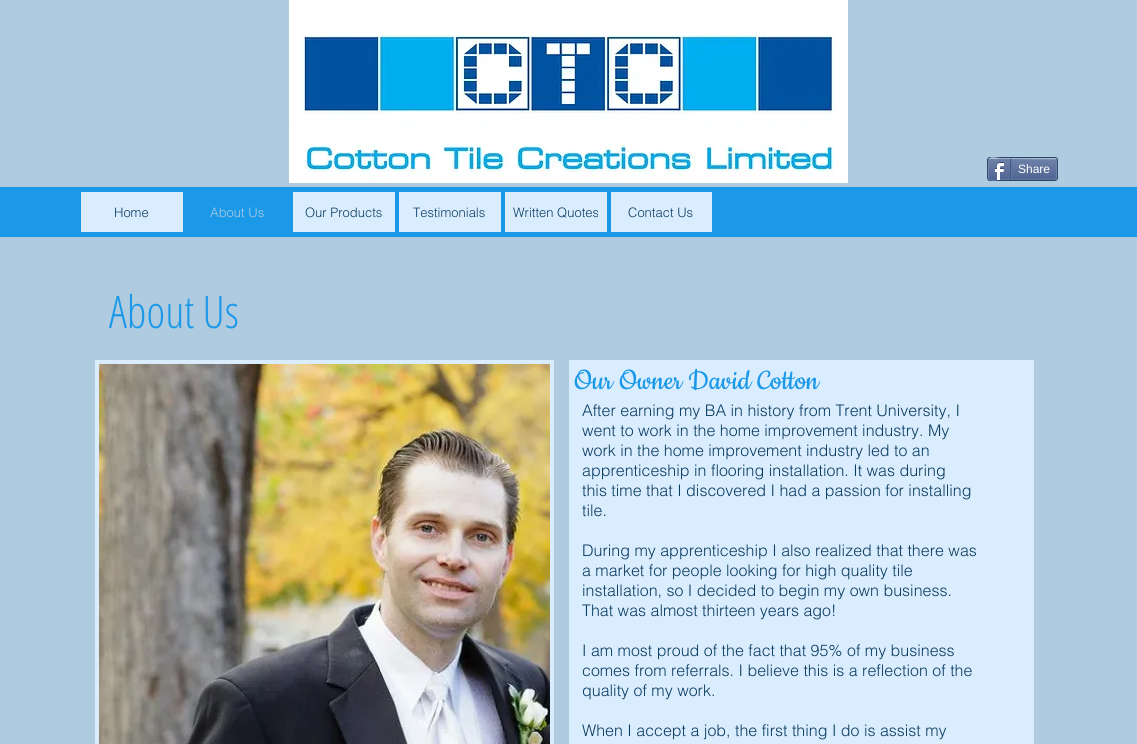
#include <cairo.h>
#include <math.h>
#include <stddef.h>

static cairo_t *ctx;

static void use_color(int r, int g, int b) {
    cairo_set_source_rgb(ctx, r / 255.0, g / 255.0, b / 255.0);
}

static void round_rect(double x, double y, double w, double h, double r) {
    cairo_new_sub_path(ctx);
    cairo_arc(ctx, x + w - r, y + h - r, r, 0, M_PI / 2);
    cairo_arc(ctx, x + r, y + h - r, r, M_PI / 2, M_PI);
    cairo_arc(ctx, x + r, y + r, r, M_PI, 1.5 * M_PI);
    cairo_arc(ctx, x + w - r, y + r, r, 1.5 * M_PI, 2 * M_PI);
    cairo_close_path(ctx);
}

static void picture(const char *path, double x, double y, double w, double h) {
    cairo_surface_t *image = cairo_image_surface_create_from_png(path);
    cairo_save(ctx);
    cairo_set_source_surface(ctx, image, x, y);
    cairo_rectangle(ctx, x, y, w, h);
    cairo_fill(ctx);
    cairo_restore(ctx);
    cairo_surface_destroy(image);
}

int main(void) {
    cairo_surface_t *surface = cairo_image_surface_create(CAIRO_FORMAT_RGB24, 1137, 744);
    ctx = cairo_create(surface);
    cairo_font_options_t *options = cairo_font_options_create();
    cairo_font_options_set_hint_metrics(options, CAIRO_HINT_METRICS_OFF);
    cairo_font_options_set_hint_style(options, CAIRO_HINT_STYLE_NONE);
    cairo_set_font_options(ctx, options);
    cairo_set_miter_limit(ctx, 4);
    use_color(175, 203, 224);
    cairo_paint(ctx);
    picture("img1.png", 289, 0, 559, 183);
    round_rect(987.5, 157.5, 70, 23, 2.5);
    use_color(45, 69, 101);
    cairo_set_line_width(ctx, 1);
    cairo_stroke(ctx);
    picture("img2.png", 988, 159, 69, 21);
    cairo_new_path(ctx);
    cairo_move_to(ctx, 989, 159);
    cairo_curve_to(ctx, 992, 156, 997, 158.5, 1001, 158.5);
    cairo_line_to(ctx, 1056, 159);
    use_color(154, 171, 198);
    cairo_stroke(ctx);
    cairo_new_path(ctx);
    cairo_move_to(ctx, 1056, 159);
    cairo_curve_to(ctx, 1057, 159.5, 1057, 178.5, 1056, 179);
    use_color(111, 131, 173);
    cairo_stroke(ctx);
    cairo_new_path(ctx);
    cairo_move_to(ctx, 1056, 179);
    cairo_line_to(ctx, 1001, 179.5);
    cairo_curve_to(ctx, 997, 179.5, 992, 182, 989, 179);
    use_color(97, 118, 163);
    cairo_stroke(ctx);
    cairo_new_path(ctx);
    cairo_move_to(ctx, 989, 179);
    cairo_curve_to(ctx, 988, 178.5, 988, 159.5, 989, 159);
    use_color(111, 131, 173);
    cairo_stroke(ctx);
    picture("img3.png", 994, 162, 10, 18);
    use_color(66, 94, 133);
    cairo_rectangle(ctx, 1010, 159, 1, 21);
    cairo_fill(ctx);
    cairo_select_font_face(ctx, "Liberation Sans", CAIRO_FONT_SLANT_NORMAL, CAIRO_FONT_WEIGHT_NORMAL);
    cairo_set_font_size(ctx, 12);
    use_color(255, 255, 255);
    cairo_move_to(ctx, 1018, 173);
    cairo_show_text(ctx, "Share");
    use_color(97, 118, 163);
    cairo_rectangle(ctx, 1011, 159, 1, 20);
    cairo_fill(ctx);
    use_color(27, 153, 232);
    cairo_rectangle(ctx, 0, 187, 1137, 50);
    cairo_fill(ctx);
    use_color(218, 237, 255);
    cairo_rectangle(ctx, 81, 192, 102, 40);
    cairo_fill(ctx);
    cairo_select_font_face(ctx, "helvetica Light", CAIRO_FONT_SLANT_NORMAL, CAIRO_FONT_WEIGHT_NORMAL);
    cairo_set_font_size(ctx, 13);
    use_color(12, 60, 96);
    cairo_move_to(ctx, 114, 217);
    cairo_show_text(ctx, "Home");
    use_color(175, 203, 224);
    cairo_move_to(ctx, 210, 217);
    cairo_show_text(ctx, "About Us");
    use_color(218, 237, 255);
    cairo_rectangle(ctx, 293, 192, 102, 40);
    cairo_fill(ctx);
    use_color(12, 60, 96);
    cairo_move_to(ctx, 305, 217);
    cairo_show_text(ctx, "Our Products");
    use_color(218, 237, 255);
    cairo_rectangle(ctx, 399, 192, 102, 40);
    cairo_fill(ctx);
    use_color(12, 60, 96);
    cairo_move_to(ctx, 413, 217);
    cairo_show_text(ctx, "Testimonials");
    use_color(218, 237, 255);
    cairo_rectangle(ctx, 505, 192, 102, 40);
    cairo_fill(ctx);
    use_color(12, 60, 96);
    cairo_move_to(ctx, 513, 217);
    cairo_show_text(ctx, "Written Quotes");
    use_color(218, 237, 255);
    cairo_rectangle(ctx, 611, 192, 101, 40);
    cairo_fill(ctx);
    use_color(12, 60, 96);
    cairo_move_to(ctx, 628, 217);
    cairo_show_text(ctx, "Contact Us");
    cairo_select_font_face(ctx, "Open Sans Condensed Light", CAIRO_FONT_SLANT_NORMAL, CAIRO_FONT_WEIGHT_NORMAL);
    cairo_set_font_size(ctx, 45);
    use_color(27, 153, 232);
    cairo_move_to(ctx, 109, 328);
    cairo_show_text(ctx, "About Us");
    use_color(218, 237, 255);
    cairo_rectangle(ctx, 95, 360, 459, 384);
    cairo_fill(ctx);
    picture("img4.png", 99, 364, 451, 380);
    cairo_rectangle(ctx, 569, 360, 465, 384);
    cairo_fill(ctx);
    cairo_select_font_face(ctx, "Cookie", CAIRO_FONT_SLANT_NORMAL, CAIRO_FONT_WEIGHT_NORMAL);
    cairo_set_font_size(ctx, 32);
    use_color(27, 153, 232);
    cairo_move_to(ctx, 574, 389);
    cairo_show_text(ctx, "Our Owner David Cotton");
    cairo_select_font_face(ctx, "helvetica Light", CAIRO_FONT_SLANT_NORMAL, CAIRO_FONT_WEIGHT_NORMAL);
    cairo_set_font_size(ctx, 16);
    use_color(12, 60, 96);
    cairo_move_to(ctx, 582, 416);
    cairo_show_text(ctx, "After earning my BA in history from Trent University, I");
    cairo_move_to(ctx, 582, 436);
    cairo_show_text(ctx, "went to work in the home improvement industry. My");
    cairo_move_to(ctx, 582, 456);
    cairo_show_text(ctx, "work in the home improvement industry led to an");
    cairo_move_to(ctx, 582, 476);
    cairo_show_text(ctx, "apprenticeship in flooring installation. It was during");
    cairo_move_to(ctx, 582, 496);
    cairo_show_text(ctx, "this time that I discovered I had a passion for installing");
    cairo_move_to(ctx, 582, 516);
    cairo_show_text(ctx, "tile.");
    cairo_move_to(ctx, 582, 556);
    cairo_show_text(ctx, "During my apprenticeship I also realized that there was");
    cairo_move_to(ctx, 582, 576);
    cairo_show_text(ctx, "a market for people looking for high quality tile");
    cairo_move_to(ctx, 582, 596);
    cairo_show_text(ctx, "installation, so I decided to begin my own business.");
    cairo_move_to(ctx, 582, 616);
    cairo_show_text(ctx, "That was almost thirteen years ago!");
    cairo_move_to(ctx, 582, 656);
    cairo_show_text(ctx, "I am most proud of the fact that 95% of my business");
    cairo_move_to(ctx, 582, 676);
    cairo_show_text(ctx, "comes from referrals. I believe this is a reflection of the");
    cairo_move_to(ctx, 582, 696);
    cairo_show_text(ctx, "quality of my work.");
    cairo_move_to(ctx, 582, 736);
    cairo_show_text(ctx, "When I accept a job, the first thing I do is assist my");
    cairo_surface_write_to_png(surface, "result.png");
    cairo_font_options_destroy(options);
    cairo_destroy(ctx);
    cairo_surface_destroy(surface);
    return 0;
}
